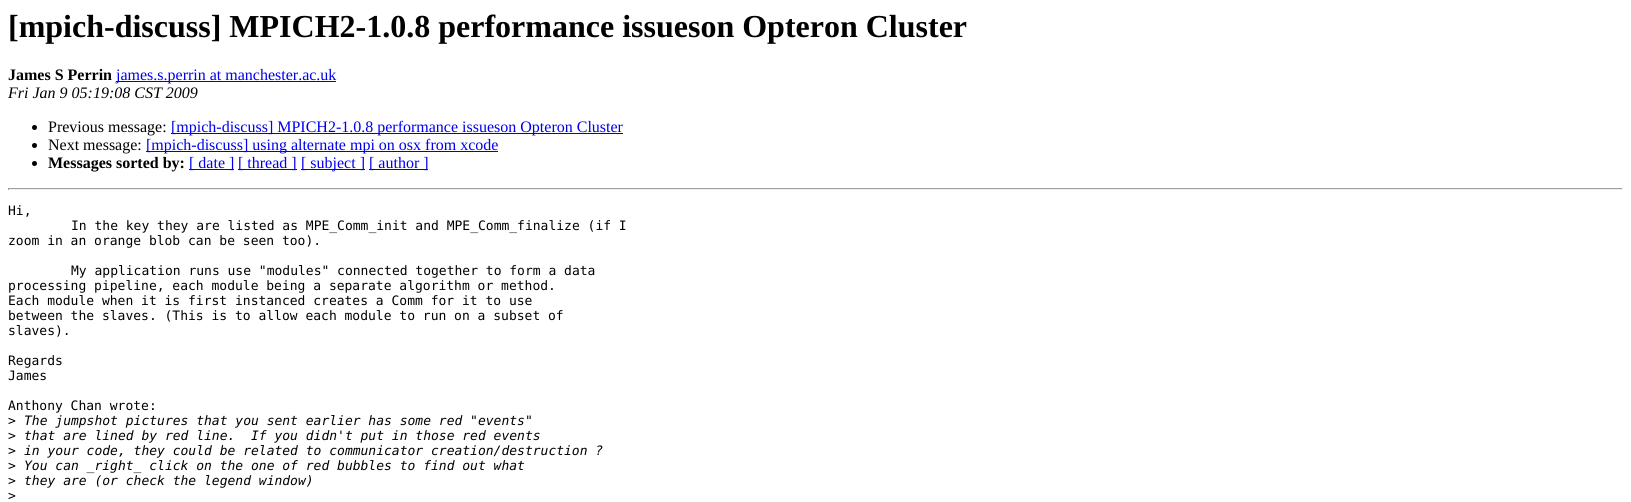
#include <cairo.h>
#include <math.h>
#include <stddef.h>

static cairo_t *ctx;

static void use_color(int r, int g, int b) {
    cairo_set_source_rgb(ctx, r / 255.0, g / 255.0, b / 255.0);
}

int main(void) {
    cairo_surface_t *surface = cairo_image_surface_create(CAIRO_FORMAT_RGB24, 1631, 502);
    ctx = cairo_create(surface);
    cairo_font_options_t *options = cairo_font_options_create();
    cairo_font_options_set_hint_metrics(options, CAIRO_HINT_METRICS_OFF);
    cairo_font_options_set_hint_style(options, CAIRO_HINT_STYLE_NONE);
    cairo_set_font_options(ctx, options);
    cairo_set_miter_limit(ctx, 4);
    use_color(255, 255, 255);
    cairo_paint(ctx);
    cairo_select_font_face(ctx, "Liberation Serif", CAIRO_FONT_SLANT_NORMAL, CAIRO_FONT_WEIGHT_BOLD);
    cairo_set_font_size(ctx, 32);
    use_color(0, 0, 0);
    cairo_move_to(ctx, 8, 37);
    cairo_show_text(ctx, "[mpich-discuss] MPICH2-1.0.8 performance issueson Opteron Cluster");
    cairo_set_font_size(ctx, 16);
    cairo_move_to(ctx, 8, 80);
    cairo_show_text(ctx, "James S Perrin");
    use_color(0, 0, 238);
    cairo_rectangle(ctx, 116, 81, 220, 1);
    cairo_fill(ctx);
    cairo_select_font_face(ctx, "Liberation Serif", CAIRO_FONT_SLANT_NORMAL, CAIRO_FONT_WEIGHT_NORMAL);
    cairo_move_to(ctx, 116, 80);
    cairo_show_text(ctx, "james.s.perrin at manchester.ac.uk");
    cairo_select_font_face(ctx, "Liberation Serif", CAIRO_FONT_SLANT_ITALIC, CAIRO_FONT_WEIGHT_NORMAL);
    use_color(0, 0, 0);
    cairo_move_to(ctx, 8, 98);
    cairo_show_text(ctx, "Fri Jan 9 05:19:08 CST 2009");
    cairo_new_path(ctx);
    cairo_arc(ctx, 34.5, 127.5, 2.5, 0, 2 * M_PI);
    cairo_fill(ctx);
    cairo_select_font_face(ctx, "Liberation Serif", CAIRO_FONT_SLANT_NORMAL, CAIRO_FONT_WEIGHT_NORMAL);
    cairo_move_to(ctx, 48, 132);
    cairo_show_text(ctx, "Previous message:");
    use_color(0, 0, 238);
    cairo_rectangle(ctx, 171, 133, 452, 1);
    cairo_fill(ctx);
    cairo_move_to(ctx, 171, 132);
    cairo_show_text(ctx, "[mpich-discuss] MPICH2-1.0.8 performance issueson Opteron Cluster");
    use_color(0, 0, 0);
    cairo_new_path(ctx);
    cairo_arc(ctx, 34.5, 145.5, 2.5, 0, 2 * M_PI);
    cairo_fill(ctx);
    cairo_move_to(ctx, 48, 150);
    cairo_show_text(ctx, "Next message:");
    use_color(0, 0, 238);
    cairo_rectangle(ctx, 146, 151, 352, 1);
    cairo_fill(ctx);
    cairo_move_to(ctx, 146, 150);
    cairo_show_text(ctx, "[mpich-discuss] using alternate mpi on osx from xcode");
    use_color(0, 0, 0);
    cairo_new_path(ctx);
    cairo_arc(ctx, 34.5, 163.5, 2.5, 0, 2 * M_PI);
    cairo_fill(ctx);
    cairo_select_font_face(ctx, "Liberation Serif", CAIRO_FONT_SLANT_NORMAL, CAIRO_FONT_WEIGHT_BOLD);
    cairo_move_to(ctx, 48, 168);
    cairo_show_text(ctx, "Messages sorted by:");
    use_color(0, 0, 238);
    cairo_rectangle(ctx, 189, 169, 45, 1);
    cairo_fill(ctx);
    cairo_select_font_face(ctx, "Liberation Serif", CAIRO_FONT_SLANT_NORMAL, CAIRO_FONT_WEIGHT_NORMAL);
    cairo_move_to(ctx, 189, 168);
    cairo_show_text(ctx, "[ date ]");
    cairo_rectangle(ctx, 238, 169, 59, 1);
    cairo_fill(ctx);
    cairo_move_to(ctx, 238, 168);
    cairo_show_text(ctx, "[ thread ]");
    cairo_rectangle(ctx, 301, 169, 64, 1);
    cairo_fill(ctx);
    cairo_move_to(ctx, 301, 168);
    cairo_show_text(ctx, "[ subject ]");
    cairo_rectangle(ctx, 369, 169, 59, 1);
    cairo_fill(ctx);
    cairo_move_to(ctx, 369, 168);
    cairo_show_text(ctx, "[ author ]");
    use_color(159, 159, 159);
    cairo_rectangle(ctx, 8, 188, 1615, 1);
    cairo_fill(ctx);
    use_color(238, 238, 238);
    cairo_rectangle(ctx, 1622, 188, 1, 2);
    cairo_fill(ctx);
    cairo_rectangle(ctx, 8, 189, 1615, 1);
    cairo_fill(ctx);
    use_color(159, 159, 159);
    cairo_rectangle(ctx, 8, 188, 1, 2);
    cairo_fill(ctx);
    cairo_select_font_face(ctx, "DejaVu Sans Mono", CAIRO_FONT_SLANT_NORMAL, CAIRO_FONT_WEIGHT_NORMAL);
    cairo_set_font_size(ctx, 13);
    use_color(0, 0, 0);
    cairo_move_to(ctx, 8, 215);
    cairo_show_text(ctx, "Hi,");
    cairo_move_to(ctx, 71, 230);
    cairo_show_text(ctx, "In the key they are listed as MPE_Comm_init and MPE_Comm_finalize (if I");
    cairo_move_to(ctx, 8, 245);
    cairo_show_text(ctx, "zoom in an orange blob can be seen too).");
    cairo_move_to(ctx, 71, 275);
    cairo_show_text(ctx, "My application runs use \"modules\" connected together to form a data");
    cairo_move_to(ctx, 8, 290);
    cairo_show_text(ctx, "processing pipeline, each module being a separate algorithm or method.");
    cairo_move_to(ctx, 8, 305);
    cairo_show_text(ctx, "Each module when it is first instanced creates a Comm for it to use");
    cairo_move_to(ctx, 8, 320);
    cairo_show_text(ctx, "between the slaves. (This is to allow each module to run on a subset of");
    cairo_move_to(ctx, 8, 335);
    cairo_show_text(ctx, "slaves).");
    cairo_move_to(ctx, 8, 365);
    cairo_show_text(ctx, "Regards");
    cairo_move_to(ctx, 8, 380);
    cairo_show_text(ctx, "James");
    cairo_move_to(ctx, 8, 410);
    cairo_show_text(ctx, "Anthony Chan wrote:");
    cairo_move_to(ctx, 8, 425);
    cairo_show_text(ctx, ">");
    cairo_select_font_face(ctx, "DejaVu Sans Mono", CAIRO_FONT_SLANT_ITALIC, CAIRO_FONT_WEIGHT_NORMAL);
    cairo_move_to(ctx, 24, 425);
    cairo_show_text(ctx, "The jumpshot pictures that you sent earlier has some red \"events\"");
    cairo_select_font_face(ctx, "DejaVu Sans Mono", CAIRO_FONT_SLANT_NORMAL, CAIRO_FONT_WEIGHT_NORMAL);
    cairo_move_to(ctx, 8, 440);
    cairo_show_text(ctx, ">");
    cairo_select_font_face(ctx, "DejaVu Sans Mono", CAIRO_FONT_SLANT_ITALIC, CAIRO_FONT_WEIGHT_NORMAL);
    cairo_move_to(ctx, 24, 440);
    cairo_show_text(ctx, "that are lined by red line.  If you didn't put in those red events");
    cairo_select_font_face(ctx, "DejaVu Sans Mono", CAIRO_FONT_SLANT_NORMAL, CAIRO_FONT_WEIGHT_NORMAL);
    cairo_move_to(ctx, 8, 455);
    cairo_show_text(ctx, ">");
    cairo_select_font_face(ctx, "DejaVu Sans Mono", CAIRO_FONT_SLANT_ITALIC, CAIRO_FONT_WEIGHT_NORMAL);
    cairo_move_to(ctx, 24, 455);
    cairo_show_text(ctx, "in your code, they could be related to communicator creation/destruction ?");
    cairo_select_font_face(ctx, "DejaVu Sans Mono", CAIRO_FONT_SLANT_NORMAL, CAIRO_FONT_WEIGHT_NORMAL);
    cairo_move_to(ctx, 8, 470);
    cairo_show_text(ctx, ">");
    cairo_select_font_face(ctx, "DejaVu Sans Mono", CAIRO_FONT_SLANT_ITALIC, CAIRO_FONT_WEIGHT_NORMAL);
    cairo_move_to(ctx, 24, 470);
    cairo_show_text(ctx, "You can _right_ click on the one of red bubbles to find out what");
    cairo_select_font_face(ctx, "DejaVu Sans Mono", CAIRO_FONT_SLANT_NORMAL, CAIRO_FONT_WEIGHT_NORMAL);
    cairo_move_to(ctx, 8, 485);
    cairo_show_text(ctx, ">");
    cairo_select_font_face(ctx, "DejaVu Sans Mono", CAIRO_FONT_SLANT_ITALIC, CAIRO_FONT_WEIGHT_NORMAL);
    cairo_move_to(ctx, 24, 485);
    cairo_show_text(ctx, "they are (or check the legend window)");
    cairo_select_font_face(ctx, "DejaVu Sans Mono", CAIRO_FONT_SLANT_NORMAL, CAIRO_FONT_WEIGHT_NORMAL);
    cairo_move_to(ctx, 8, 500);
    cairo_show_text(ctx, ">");
    cairo_surface_write_to_png(surface, "result.png");
    cairo_font_options_destroy(options);
    cairo_destroy(ctx);
    cairo_surface_destroy(surface);
    return 0;
}
